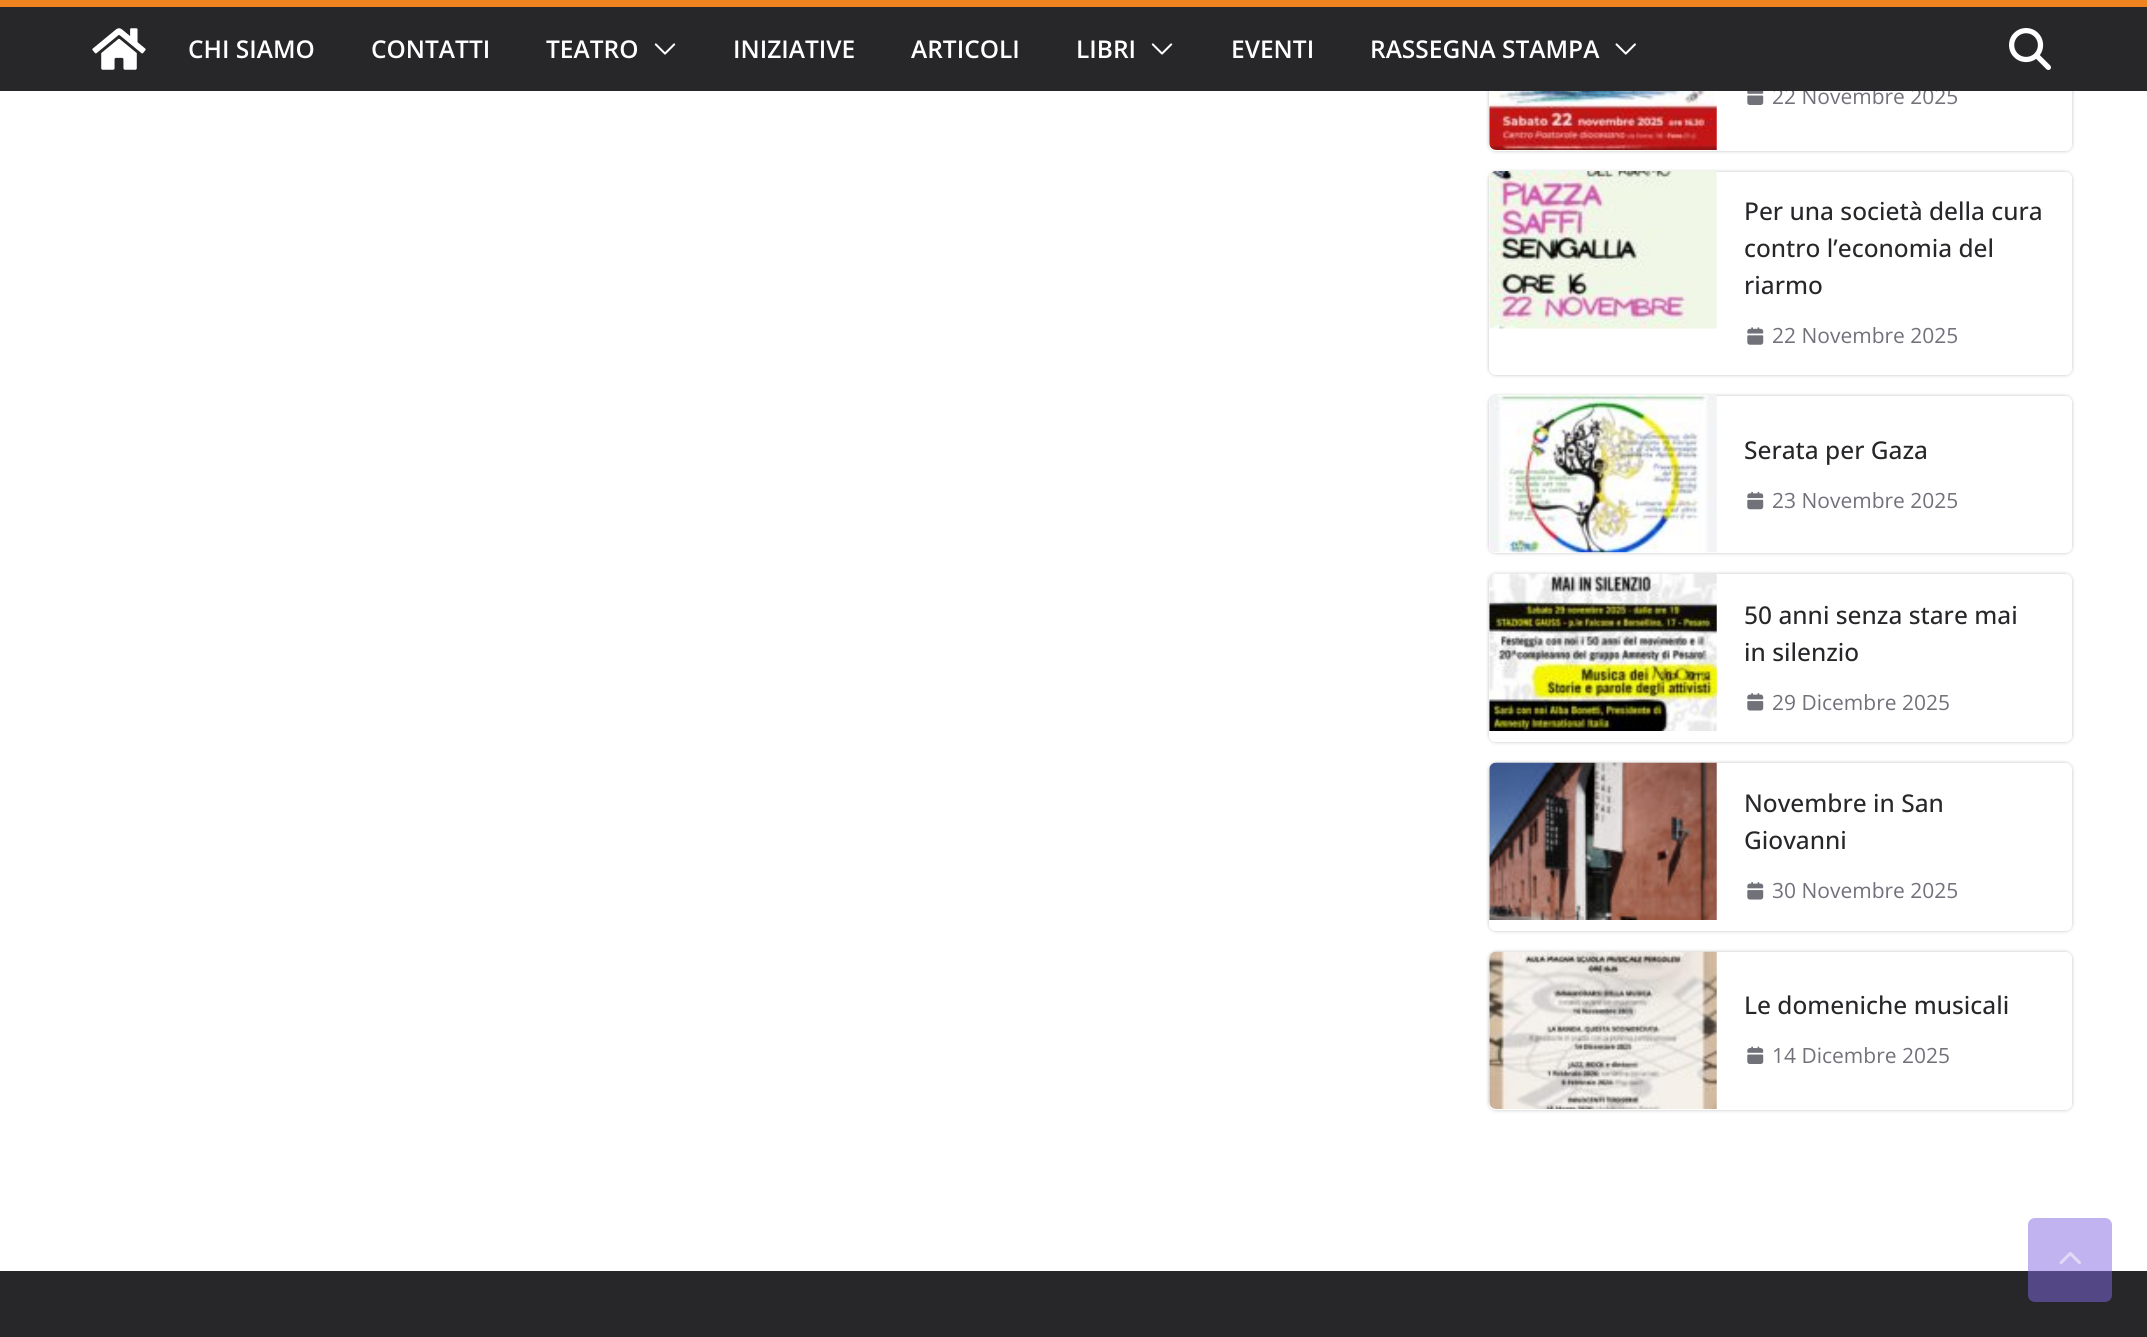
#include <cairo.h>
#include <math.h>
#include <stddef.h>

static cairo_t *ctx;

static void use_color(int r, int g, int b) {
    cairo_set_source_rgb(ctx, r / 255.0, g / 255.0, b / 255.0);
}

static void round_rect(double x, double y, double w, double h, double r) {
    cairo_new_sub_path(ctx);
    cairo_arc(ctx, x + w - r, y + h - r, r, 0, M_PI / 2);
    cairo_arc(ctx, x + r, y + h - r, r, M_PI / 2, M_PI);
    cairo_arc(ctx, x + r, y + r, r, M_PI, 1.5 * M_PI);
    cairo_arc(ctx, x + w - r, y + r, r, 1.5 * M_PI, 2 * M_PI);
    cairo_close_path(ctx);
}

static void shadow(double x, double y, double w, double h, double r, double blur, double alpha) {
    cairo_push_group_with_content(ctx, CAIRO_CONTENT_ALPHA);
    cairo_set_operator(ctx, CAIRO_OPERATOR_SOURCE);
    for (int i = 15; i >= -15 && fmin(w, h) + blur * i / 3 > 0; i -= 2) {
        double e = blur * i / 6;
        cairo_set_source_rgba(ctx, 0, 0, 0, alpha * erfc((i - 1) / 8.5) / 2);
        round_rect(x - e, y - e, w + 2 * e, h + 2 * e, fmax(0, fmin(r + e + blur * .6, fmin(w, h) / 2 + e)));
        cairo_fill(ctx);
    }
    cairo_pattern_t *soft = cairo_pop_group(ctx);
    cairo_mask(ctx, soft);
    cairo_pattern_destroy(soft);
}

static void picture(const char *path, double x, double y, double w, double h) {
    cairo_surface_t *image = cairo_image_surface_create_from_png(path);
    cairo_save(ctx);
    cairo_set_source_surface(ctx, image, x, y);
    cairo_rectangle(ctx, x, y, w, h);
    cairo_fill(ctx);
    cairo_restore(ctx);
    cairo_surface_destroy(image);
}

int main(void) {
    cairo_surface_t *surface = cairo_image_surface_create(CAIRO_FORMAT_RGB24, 2147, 1337);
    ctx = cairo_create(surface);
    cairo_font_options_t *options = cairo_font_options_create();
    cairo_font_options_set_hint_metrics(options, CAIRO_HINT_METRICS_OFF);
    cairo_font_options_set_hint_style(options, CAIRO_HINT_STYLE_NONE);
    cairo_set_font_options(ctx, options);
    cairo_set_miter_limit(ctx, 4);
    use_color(255, 255, 255);
    cairo_paint(ctx);
    cairo_save(ctx);
    cairo_set_fill_rule(ctx, CAIRO_FILL_RULE_EVEN_ODD);
    cairo_new_path(ctx);
    cairo_move_to(ctx, 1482, 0);
    cairo_line_to(ctx, 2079, 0);
    cairo_line_to(ctx, 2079, 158);
    cairo_line_to(ctx, 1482, 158);
    cairo_close_path(ctx);
    cairo_move_to(ctx, 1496, -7);
    cairo_line_to(ctx, 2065, -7);
    cairo_curve_to(ctx, 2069, -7, 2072, -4, 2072, 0);
    cairo_line_to(ctx, 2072, 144);
    cairo_curve_to(ctx, 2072, 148, 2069, 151, 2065, 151);
    cairo_line_to(ctx, 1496, 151);
    cairo_curve_to(ctx, 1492, 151, 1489, 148, 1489, 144);
    cairo_line_to(ctx, 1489, 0);
    cairo_curve_to(ctx, 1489, -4, 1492, -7, 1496, -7);
    cairo_close_path(ctx);
    cairo_clip(ctx);
    use_color(0, 0, 0);
    shadow(1489, -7, 583, 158, 7, 2, 0.24);
    cairo_restore(ctx);
    cairo_select_font_face(ctx, "Open Sans", CAIRO_FONT_SLANT_NORMAL, CAIRO_FONT_WEIGHT_NORMAL);
    cairo_set_font_size(ctx, 21);
    use_color(113, 113, 122);
    cairo_move_to(ctx, 1772, 104);
    cairo_show_text(ctx, "22 Novembre 2025");
    use_color(39, 39, 42);
    cairo_rectangle(ctx, 0, 7, 2147, 84);
    cairo_fill(ctx);
    use_color(239, 131, 31);
    cairo_rectangle(ctx, 0, 0, 2147, 7);
    cairo_fill(ctx);
    picture("img1.png", 92, 28, 54, 42);
    cairo_select_font_face(ctx, "Open Sans SemiBold", CAIRO_FONT_SLANT_NORMAL, CAIRO_FONT_WEIGHT_NORMAL);
    cairo_set_font_size(ctx, 24.5);
    use_color(255, 255, 255);
    cairo_move_to(ctx, 188, 58);
    cairo_show_text(ctx, "CHI SIAMO");
    cairo_move_to(ctx, 371, 58);
    cairo_show_text(ctx, "CONTATTI");
    cairo_move_to(ctx, 546, 58);
    cairo_show_text(ctx, "TEATRO");
    picture("img2.png", 654, 43, 22, 12);
    cairo_move_to(ctx, 733, 58);
    cairo_show_text(ctx, "INIZIATIVE");
    cairo_move_to(ctx, 911, 58);
    cairo_show_text(ctx, "ARTICOLI");
    cairo_move_to(ctx, 1076, 58);
    cairo_show_text(ctx, "LIBRI");
    picture("img2.png", 1151, 43, 22, 12);
    cairo_move_to(ctx, 1231, 58);
    cairo_show_text(ctx, "EVENTI");
    cairo_move_to(ctx, 1370, 58);
    cairo_show_text(ctx, "RASSEGNA STAMPA");
    picture("img3.png", 1615, 43, 21, 12);
    picture("img4.png", 2009, 28, 42, 42);
    picture("img5.png", 1489, 91, 228, 59);
    picture("img6.png", 1747, 91, 17, 14);
    cairo_save(ctx);
    cairo_set_fill_rule(ctx, CAIRO_FILL_RULE_EVEN_ODD);
    cairo_new_path(ctx);
    cairo_move_to(ctx, 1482, 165);
    cairo_line_to(ctx, 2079, 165);
    cairo_line_to(ctx, 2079, 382);
    cairo_line_to(ctx, 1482, 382);
    cairo_close_path(ctx);
    cairo_move_to(ctx, 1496, 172);
    cairo_line_to(ctx, 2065, 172);
    cairo_curve_to(ctx, 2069, 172, 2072, 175, 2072, 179);
    cairo_line_to(ctx, 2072, 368);
    cairo_curve_to(ctx, 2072, 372, 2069, 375, 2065, 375);
    cairo_line_to(ctx, 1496, 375);
    cairo_curve_to(ctx, 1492, 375, 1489, 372, 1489, 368);
    cairo_line_to(ctx, 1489, 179);
    cairo_curve_to(ctx, 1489, 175, 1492, 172, 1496, 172);
    cairo_close_path(ctx);
    cairo_clip(ctx);
    use_color(0, 0, 0);
    shadow(1489, 172, 583, 203, 7, 2, 0.24);
    cairo_restore(ctx);
    picture("img7.png", 1489, 171, 228, 158);
    cairo_select_font_face(ctx, "Open Sans Medium", CAIRO_FONT_SLANT_NORMAL, CAIRO_FONT_WEIGHT_NORMAL);
    use_color(39, 39, 42);
    cairo_move_to(ctx, 1744, 220);
    cairo_show_text(ctx, "Per una società della cura");
    cairo_move_to(ctx, 1744, 257);
    cairo_show_text(ctx, "contro l’economia del");
    cairo_move_to(ctx, 1744, 294);
    cairo_show_text(ctx, "riarmo");
    picture("img8.png", 1747, 327, 17, 18);
    cairo_select_font_face(ctx, "Open Sans", CAIRO_FONT_SLANT_NORMAL, CAIRO_FONT_WEIGHT_NORMAL);
    cairo_set_font_size(ctx, 21);
    use_color(113, 113, 122);
    cairo_move_to(ctx, 1772, 343);
    cairo_show_text(ctx, "22 Novembre 2025");
    cairo_save(ctx);
    cairo_set_fill_rule(ctx, CAIRO_FILL_RULE_EVEN_ODD);
    cairo_new_path(ctx);
    cairo_move_to(ctx, 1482, 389);
    cairo_line_to(ctx, 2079, 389);
    cairo_line_to(ctx, 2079, 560);
    cairo_line_to(ctx, 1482, 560);
    cairo_close_path(ctx);
    cairo_move_to(ctx, 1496, 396);
    cairo_line_to(ctx, 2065, 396);
    cairo_curve_to(ctx, 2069, 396, 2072, 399, 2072, 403);
    cairo_line_to(ctx, 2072, 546);
    cairo_curve_to(ctx, 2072, 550, 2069, 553, 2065, 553);
    cairo_line_to(ctx, 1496, 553);
    cairo_curve_to(ctx, 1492, 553, 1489, 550, 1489, 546);
    cairo_line_to(ctx, 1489, 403);
    cairo_curve_to(ctx, 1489, 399, 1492, 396, 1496, 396);
    cairo_close_path(ctx);
    cairo_clip(ctx);
    use_color(0, 0, 0);
    shadow(1489, 396, 583, 157, 7, 2, 0.24);
    cairo_restore(ctx);
    picture("img9.png", 1489, 395, 228, 158);
    cairo_select_font_face(ctx, "Open Sans Medium", CAIRO_FONT_SLANT_NORMAL, CAIRO_FONT_WEIGHT_NORMAL);
    cairo_set_font_size(ctx, 24.5);
    use_color(39, 39, 42);
    cairo_move_to(ctx, 1744, 459);
    cairo_show_text(ctx, "Serata per Gaza");
    picture("img10.png", 1747, 491, 17, 19);
    cairo_select_font_face(ctx, "Open Sans", CAIRO_FONT_SLANT_NORMAL, CAIRO_FONT_WEIGHT_NORMAL);
    cairo_set_font_size(ctx, 21);
    use_color(113, 113, 122);
    cairo_move_to(ctx, 1772, 508);
    cairo_show_text(ctx, "23 Novembre 2025");
    cairo_save(ctx);
    cairo_set_fill_rule(ctx, CAIRO_FILL_RULE_EVEN_ODD);
    cairo_new_path(ctx);
    cairo_move_to(ctx, 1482, 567);
    cairo_line_to(ctx, 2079, 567);
    cairo_line_to(ctx, 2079, 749);
    cairo_line_to(ctx, 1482, 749);
    cairo_close_path(ctx);
    cairo_move_to(ctx, 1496, 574);
    cairo_line_to(ctx, 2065, 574);
    cairo_curve_to(ctx, 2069, 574, 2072, 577, 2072, 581);
    cairo_line_to(ctx, 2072, 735);
    cairo_curve_to(ctx, 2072, 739, 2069, 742, 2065, 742);
    cairo_line_to(ctx, 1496, 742);
    cairo_curve_to(ctx, 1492, 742, 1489, 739, 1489, 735);
    cairo_line_to(ctx, 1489, 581);
    cairo_curve_to(ctx, 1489, 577, 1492, 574, 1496, 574);
    cairo_close_path(ctx);
    cairo_clip(ctx);
    use_color(0, 0, 0);
    shadow(1489, 574, 583, 168, 7, 2, 0.24);
    cairo_restore(ctx);
    picture("img11.png", 1489, 573, 228, 158);
    cairo_select_font_face(ctx, "Open Sans Medium", CAIRO_FONT_SLANT_NORMAL, CAIRO_FONT_WEIGHT_NORMAL);
    cairo_set_font_size(ctx, 24.5);
    use_color(39, 39, 42);
    cairo_move_to(ctx, 1744, 624);
    cairo_show_text(ctx, "50 anni senza stare mai");
    cairo_move_to(ctx, 1744, 661);
    cairo_show_text(ctx, "in silenzio");
    picture("img12.png", 1747, 693, 17, 18);
    cairo_select_font_face(ctx, "Open Sans", CAIRO_FONT_SLANT_NORMAL, CAIRO_FONT_WEIGHT_NORMAL);
    cairo_set_font_size(ctx, 21);
    use_color(113, 113, 122);
    cairo_move_to(ctx, 1772, 710);
    cairo_show_text(ctx, "29 Dicembre 2025");
    cairo_save(ctx);
    cairo_set_fill_rule(ctx, CAIRO_FILL_RULE_EVEN_ODD);
    cairo_new_path(ctx);
    cairo_move_to(ctx, 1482, 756);
    cairo_line_to(ctx, 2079, 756);
    cairo_line_to(ctx, 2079, 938);
    cairo_line_to(ctx, 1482, 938);
    cairo_close_path(ctx);
    cairo_move_to(ctx, 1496, 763);
    cairo_line_to(ctx, 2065, 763);
    cairo_curve_to(ctx, 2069, 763, 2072, 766, 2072, 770);
    cairo_line_to(ctx, 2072, 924);
    cairo_curve_to(ctx, 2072, 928, 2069, 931, 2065, 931);
    cairo_line_to(ctx, 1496, 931);
    cairo_curve_to(ctx, 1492, 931, 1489, 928, 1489, 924);
    cairo_line_to(ctx, 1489, 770);
    cairo_curve_to(ctx, 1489, 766, 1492, 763, 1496, 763);
    cairo_close_path(ctx);
    cairo_clip(ctx);
    use_color(0, 0, 0);
    shadow(1489, 763, 583, 168, 7, 2, 0.24);
    cairo_restore(ctx);
    picture("img13.png", 1489, 762, 228, 158);
    cairo_select_font_face(ctx, "Open Sans Medium", CAIRO_FONT_SLANT_NORMAL, CAIRO_FONT_WEIGHT_NORMAL);
    cairo_set_font_size(ctx, 24.5);
    use_color(39, 39, 42);
    cairo_move_to(ctx, 1744, 812);
    cairo_show_text(ctx, "Novembre in San");
    cairo_move_to(ctx, 1744, 849);
    cairo_show_text(ctx, "Giovanni");
    picture("img12.png", 1747, 882, 17, 18);
    cairo_select_font_face(ctx, "Open Sans", CAIRO_FONT_SLANT_NORMAL, CAIRO_FONT_WEIGHT_NORMAL);
    cairo_set_font_size(ctx, 21);
    use_color(113, 113, 122);
    cairo_move_to(ctx, 1772, 898);
    cairo_show_text(ctx, "30 Novembre 2025");
    cairo_save(ctx);
    cairo_set_fill_rule(ctx, CAIRO_FILL_RULE_EVEN_ODD);
    cairo_new_path(ctx);
    cairo_move_to(ctx, 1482, 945);
    cairo_line_to(ctx, 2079, 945);
    cairo_line_to(ctx, 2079, 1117);
    cairo_line_to(ctx, 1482, 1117);
    cairo_close_path(ctx);
    cairo_move_to(ctx, 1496, 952);
    cairo_line_to(ctx, 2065, 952);
    cairo_curve_to(ctx, 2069, 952, 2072, 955, 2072, 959);
    cairo_line_to(ctx, 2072, 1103);
    cairo_curve_to(ctx, 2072, 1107, 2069, 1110, 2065, 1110);
    cairo_line_to(ctx, 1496, 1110);
    cairo_curve_to(ctx, 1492, 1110, 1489, 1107, 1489, 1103);
    cairo_line_to(ctx, 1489, 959);
    cairo_curve_to(ctx, 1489, 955, 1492, 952, 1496, 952);
    cairo_close_path(ctx);
    cairo_clip(ctx);
    use_color(0, 0, 0);
    shadow(1489, 952, 583, 158, 7, 2, 0.24);
    cairo_restore(ctx);
    picture("img14.png", 1489, 951, 228, 158);
    cairo_select_font_face(ctx, "Open Sans Medium", CAIRO_FONT_SLANT_NORMAL, CAIRO_FONT_WEIGHT_NORMAL);
    cairo_set_font_size(ctx, 24.5);
    use_color(39, 39, 42);
    cairo_move_to(ctx, 1744, 1014);
    cairo_show_text(ctx, "Le domeniche musicali");
    picture("img15.png", 1747, 1046, 17, 18);
    cairo_select_font_face(ctx, "Open Sans", CAIRO_FONT_SLANT_NORMAL, CAIRO_FONT_WEIGHT_NORMAL);
    cairo_set_font_size(ctx, 21);
    use_color(113, 113, 122);
    cairo_move_to(ctx, 1772, 1063);
    cairo_show_text(ctx, "14 Dicembre 2025");
    use_color(39, 39, 42);
    cairo_rectangle(ctx, 0, 1271, 2147, 66);
    cairo_fill(ctx);
    cairo_set_source_rgba(ctx, 0.51, 0.412, 0.875, 0.5);
    round_rect(2028, 1218, 84, 84, 7);
    cairo_fill(ctx);
    picture("img16.png", 2059, 1252, 22, 13);
    cairo_surface_write_to_png(surface, "result.png");
    cairo_font_options_destroy(options);
    cairo_destroy(ctx);
    cairo_surface_destroy(surface);
    return 0;
}
